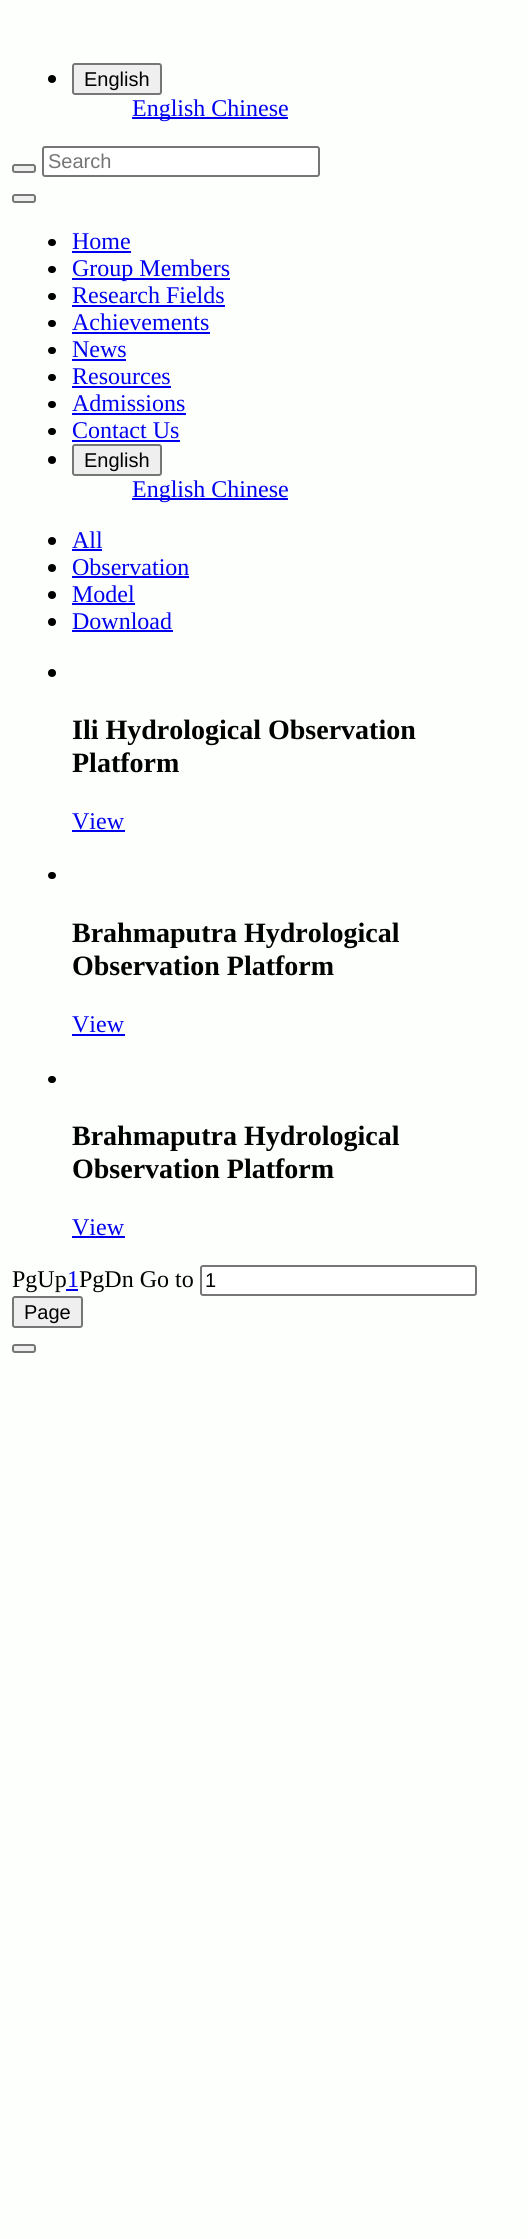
#include <cairo.h>
#include <math.h>
#include <stddef.h>

static cairo_t *ctx;

static void use_color(int r, int g, int b) {
    cairo_set_source_rgb(ctx, r / 255.0, g / 255.0, b / 255.0);
}

static void round_rect(double x, double y, double w, double h, double r) {
    cairo_new_sub_path(ctx);
    cairo_arc(ctx, x + w - r, y + h - r, r, 0, M_PI / 2);
    cairo_arc(ctx, x + r, y + h - r, r, M_PI / 2, M_PI);
    cairo_arc(ctx, x + r, y + r, r, M_PI, 1.5 * M_PI);
    cairo_arc(ctx, x + w - r, y + r, r, 1.5 * M_PI, 2 * M_PI);
    cairo_close_path(ctx);
}

int main(void) {
    cairo_surface_t *surface = cairo_image_surface_create(CAIRO_FORMAT_RGB24, 528, 2239);
    ctx = cairo_create(surface);
    cairo_font_options_t *options = cairo_font_options_create();
    cairo_font_options_set_hint_metrics(options, CAIRO_HINT_METRICS_OFF);
    cairo_font_options_set_hint_style(options, CAIRO_HINT_STYLE_NONE);
    cairo_set_font_options(ctx, options);
    cairo_set_miter_limit(ctx, 4);
    use_color(252, 255, 252);
    cairo_paint(ctx);
    use_color(0, 0, 0);
    cairo_arc(ctx, 52, 79, 4, 0, 2 * M_PI);
    cairo_fill(ctx);
    use_color(239, 239, 239);
    round_rect(73, 64, 88, 30, 2);
    cairo_fill_preserve(ctx);
    use_color(118, 118, 118);
    cairo_stroke(ctx);
    cairo_select_font_face(ctx, "Liberation Sans", CAIRO_FONT_SLANT_NORMAL, CAIRO_FONT_WEIGHT_NORMAL);
    cairo_set_font_size(ctx, 20);
    use_color(0, 0, 0);
    cairo_move_to(ctx, 84, 86);
    cairo_show_text(ctx, "English");
    use_color(0, 0, 238);
    cairo_rectangle(ctx, 132, 117, 156, 2);
    cairo_fill(ctx);
    cairo_select_font_face(ctx, "Liberation Serif", CAIRO_FONT_SLANT_NORMAL, CAIRO_FONT_WEIGHT_NORMAL);
    cairo_set_font_size(ctx, 24);
    cairo_move_to(ctx, 132, 116);
    cairo_show_text(ctx, "English Chinese");
    use_color(239, 239, 239);
    round_rect(13, 165, 22, 7, 2);
    cairo_fill_preserve(ctx);
    use_color(118, 118, 118);
    cairo_stroke(ctx);
    use_color(255, 255, 255);
    round_rect(43, 147, 276, 29, 2);
    cairo_fill_preserve(ctx);
    use_color(118, 118, 118);
    cairo_stroke(ctx);
    cairo_select_font_face(ctx, "Liberation Sans", CAIRO_FONT_SLANT_NORMAL, CAIRO_FONT_WEIGHT_NORMAL);
    cairo_set_font_size(ctx, 20);
    use_color(117, 117, 117);
    cairo_move_to(ctx, 48, 168);
    cairo_show_text(ctx, "Search");
    use_color(239, 239, 239);
    round_rect(13, 195, 22, 7, 2);
    cairo_fill_preserve(ctx);
    use_color(118, 118, 118);
    cairo_stroke(ctx);
    use_color(0, 0, 0);
    round_rect(48, 239, 8, 7, 3.5);
    cairo_fill(ctx);
    cairo_select_font_face(ctx, "Liberation Serif", CAIRO_FONT_SLANT_NORMAL, CAIRO_FONT_WEIGHT_NORMAL);
    cairo_set_font_size(ctx, 24);
    use_color(0, 0, 238);
    cairo_move_to(ctx, 72, 249);
    cairo_show_text(ctx, "Home");
    cairo_rectangle(ctx, 72, 251, 59, 2);
    cairo_fill(ctx);
    use_color(0, 0, 0);
    round_rect(48, 266, 8, 7, 3.5);
    cairo_fill(ctx);
    use_color(0, 0, 238);
    cairo_rectangle(ctx, 72, 278, 158, 2);
    cairo_fill(ctx);
    cairo_move_to(ctx, 72, 276);
    cairo_show_text(ctx, "Group Members");
    use_color(0, 0, 0);
    round_rect(48, 293, 8, 7, 3.5);
    cairo_fill(ctx);
    use_color(0, 0, 238);
    cairo_move_to(ctx, 72, 303);
    cairo_show_text(ctx, "Research Fields");
    cairo_rectangle(ctx, 72, 305, 153, 2);
    cairo_fill(ctx);
    use_color(0, 0, 0);
    round_rect(48, 320, 8, 7, 3.5);
    cairo_fill(ctx);
    use_color(0, 0, 238);
    cairo_move_to(ctx, 72, 330);
    cairo_show_text(ctx, "Achievements");
    cairo_rectangle(ctx, 72, 332, 138, 2);
    cairo_fill(ctx);
    use_color(0, 0, 0);
    round_rect(48, 347, 8, 7, 3.5);
    cairo_fill(ctx);
    use_color(0, 0, 238);
    cairo_move_to(ctx, 72, 357);
    cairo_show_text(ctx, "News");
    cairo_rectangle(ctx, 72, 359, 54, 2);
    cairo_fill(ctx);
    use_color(0, 0, 0);
    round_rect(48, 374, 8, 7, 3.5);
    cairo_fill(ctx);
    use_color(0, 0, 238);
    cairo_move_to(ctx, 72, 384);
    cairo_show_text(ctx, "Resources");
    cairo_rectangle(ctx, 72, 386, 99, 2);
    cairo_fill(ctx);
    use_color(0, 0, 0);
    round_rect(48, 401, 8, 7, 3.5);
    cairo_fill(ctx);
    use_color(0, 0, 238);
    cairo_move_to(ctx, 72, 411);
    cairo_show_text(ctx, "Admissions");
    cairo_rectangle(ctx, 72, 413, 114, 2);
    cairo_fill(ctx);
    use_color(0, 0, 0);
    round_rect(48, 428, 8, 7, 3.5);
    cairo_fill(ctx);
    use_color(0, 0, 238);
    cairo_move_to(ctx, 72, 438);
    cairo_show_text(ctx, "Contact Us");
    cairo_rectangle(ctx, 72, 440, 108, 2);
    cairo_fill(ctx);
    use_color(0, 0, 0);
    cairo_arc(ctx, 52, 460, 4, 0, 2 * M_PI);
    cairo_fill(ctx);
    use_color(239, 239, 239);
    round_rect(73, 445, 88, 30, 2);
    cairo_fill_preserve(ctx);
    use_color(118, 118, 118);
    cairo_stroke(ctx);
    cairo_select_font_face(ctx, "Liberation Sans", CAIRO_FONT_SLANT_NORMAL, CAIRO_FONT_WEIGHT_NORMAL);
    cairo_set_font_size(ctx, 20);
    use_color(0, 0, 0);
    cairo_move_to(ctx, 84, 467);
    cairo_show_text(ctx, "English");
    use_color(0, 0, 238);
    cairo_rectangle(ctx, 132, 498, 156, 2);
    cairo_fill(ctx);
    cairo_select_font_face(ctx, "Liberation Serif", CAIRO_FONT_SLANT_NORMAL, CAIRO_FONT_WEIGHT_NORMAL);
    cairo_set_font_size(ctx, 24);
    cairo_move_to(ctx, 132, 497);
    cairo_show_text(ctx, "English Chinese");
    use_color(0, 0, 0);
    cairo_new_path(ctx);
    cairo_arc(ctx, 52, 541, 4, 0, 2 * M_PI);
    cairo_fill(ctx);
    use_color(0, 0, 238);
    cairo_move_to(ctx, 72, 548);
    cairo_show_text(ctx, "All");
    cairo_rectangle(ctx, 72, 549, 30, 2);
    cairo_fill(ctx);
    use_color(0, 0, 0);
    cairo_arc(ctx, 52, 568, 4, 0, 2 * M_PI);
    cairo_fill(ctx);
    use_color(0, 0, 238);
    cairo_move_to(ctx, 72, 575);
    cairo_show_text(ctx, "Observation");
    cairo_rectangle(ctx, 72, 576, 117, 2);
    cairo_fill(ctx);
    use_color(0, 0, 0);
    cairo_arc(ctx, 52, 595, 4, 0, 2 * M_PI);
    cairo_fill(ctx);
    use_color(0, 0, 238);
    cairo_move_to(ctx, 72, 602);
    cairo_show_text(ctx, "Model");
    cairo_rectangle(ctx, 72, 603, 63, 2);
    cairo_fill(ctx);
    use_color(0, 0, 0);
    cairo_arc(ctx, 52, 622, 4, 0, 2 * M_PI);
    cairo_fill(ctx);
    use_color(0, 0, 238);
    cairo_move_to(ctx, 72, 629);
    cairo_show_text(ctx, "Download");
    cairo_rectangle(ctx, 72, 630, 101, 2);
    cairo_fill(ctx);
    use_color(0, 0, 0);
    cairo_arc(ctx, 52, 673, 4, 0, 2 * M_PI);
    cairo_fill(ctx);
    cairo_select_font_face(ctx, "Liberation Serif", CAIRO_FONT_SLANT_NORMAL, CAIRO_FONT_WEIGHT_BOLD);
    cairo_set_font_size(ctx, 28);
    cairo_move_to(ctx, 72, 739);
    cairo_show_text(ctx, "Ili Hydrological Observation");
    cairo_move_to(ctx, 72, 772);
    cairo_show_text(ctx, "Platform");
    cairo_select_font_face(ctx, "Liberation Serif", CAIRO_FONT_SLANT_NORMAL, CAIRO_FONT_WEIGHT_NORMAL);
    cairo_set_font_size(ctx, 24);
    use_color(0, 0, 238);
    cairo_move_to(ctx, 72, 829);
    cairo_show_text(ctx, "View");
    cairo_rectangle(ctx, 72, 830, 53, 2);
    cairo_fill(ctx);
    use_color(0, 0, 0);
    round_rect(48, 872, 8, 7, 3.5);
    cairo_fill(ctx);
    cairo_select_font_face(ctx, "Liberation Serif", CAIRO_FONT_SLANT_NORMAL, CAIRO_FONT_WEIGHT_BOLD);
    cairo_set_font_size(ctx, 28);
    cairo_move_to(ctx, 72, 942);
    cairo_show_text(ctx, "Brahmaputra Hydrological");
    cairo_move_to(ctx, 72, 975);
    cairo_show_text(ctx, "Observation Platform");
    cairo_select_font_face(ctx, "Liberation Serif", CAIRO_FONT_SLANT_NORMAL, CAIRO_FONT_WEIGHT_NORMAL);
    cairo_set_font_size(ctx, 24);
    use_color(0, 0, 238);
    cairo_move_to(ctx, 72, 1032);
    cairo_show_text(ctx, "View");
    cairo_rectangle(ctx, 72, 1034, 53, 2);
    cairo_fill(ctx);
    use_color(0, 0, 0);
    round_rect(48, 1076, 8, 7, 3.5);
    cairo_fill(ctx);
    cairo_select_font_face(ctx, "Liberation Serif", CAIRO_FONT_SLANT_NORMAL, CAIRO_FONT_WEIGHT_BOLD);
    cairo_set_font_size(ctx, 28);
    cairo_move_to(ctx, 72, 1145);
    cairo_show_text(ctx, "Brahmaputra Hydrological");
    cairo_move_to(ctx, 72, 1178);
    cairo_show_text(ctx, "Observation Platform");
    cairo_select_font_face(ctx, "Liberation Serif", CAIRO_FONT_SLANT_NORMAL, CAIRO_FONT_WEIGHT_NORMAL);
    cairo_set_font_size(ctx, 24);
    use_color(0, 0, 238);
    cairo_move_to(ctx, 72, 1235);
    cairo_show_text(ctx, "View");
    cairo_rectangle(ctx, 72, 1236, 53, 2);
    cairo_fill(ctx);
    use_color(0, 0, 0);
    cairo_move_to(ctx, 12, 1287);
    cairo_show_text(ctx, "PgUp");
    use_color(0, 0, 238);
    cairo_move_to(ctx, 67, 1287);
    cairo_show_text(ctx, "1");
    cairo_rectangle(ctx, 66, 1289, 12, 2);
    cairo_fill(ctx);
    use_color(0, 0, 0);
    cairo_move_to(ctx, 79, 1287);
    cairo_show_text(ctx, "PgDn Go to");
    use_color(255, 255, 255);
    round_rect(201, 1266, 275, 29, 2);
    cairo_fill_preserve(ctx);
    use_color(118, 118, 118);
    cairo_stroke(ctx);
    cairo_select_font_face(ctx, "Liberation Sans", CAIRO_FONT_SLANT_NORMAL, CAIRO_FONT_WEIGHT_NORMAL);
    cairo_set_font_size(ctx, 20);
    use_color(0, 0, 0);
    cairo_move_to(ctx, 205, 1287);
    cairo_show_text(ctx, "1");
    use_color(239, 239, 239);
    round_rect(13, 1297, 69, 30, 2);
    cairo_fill_preserve(ctx);
    use_color(118, 118, 118);
    cairo_stroke(ctx);
    use_color(0, 0, 0);
    cairo_move_to(ctx, 24, 1319);
    cairo_show_text(ctx, "Page");
    use_color(239, 239, 239);
    round_rect(13, 1345, 22, 7, 2);
    cairo_fill_preserve(ctx);
    use_color(118, 118, 118);
    cairo_stroke(ctx);
    cairo_surface_write_to_png(surface, "result.png");
    cairo_font_options_destroy(options);
    cairo_destroy(ctx);
    cairo_surface_destroy(surface);
    return 0;
}
